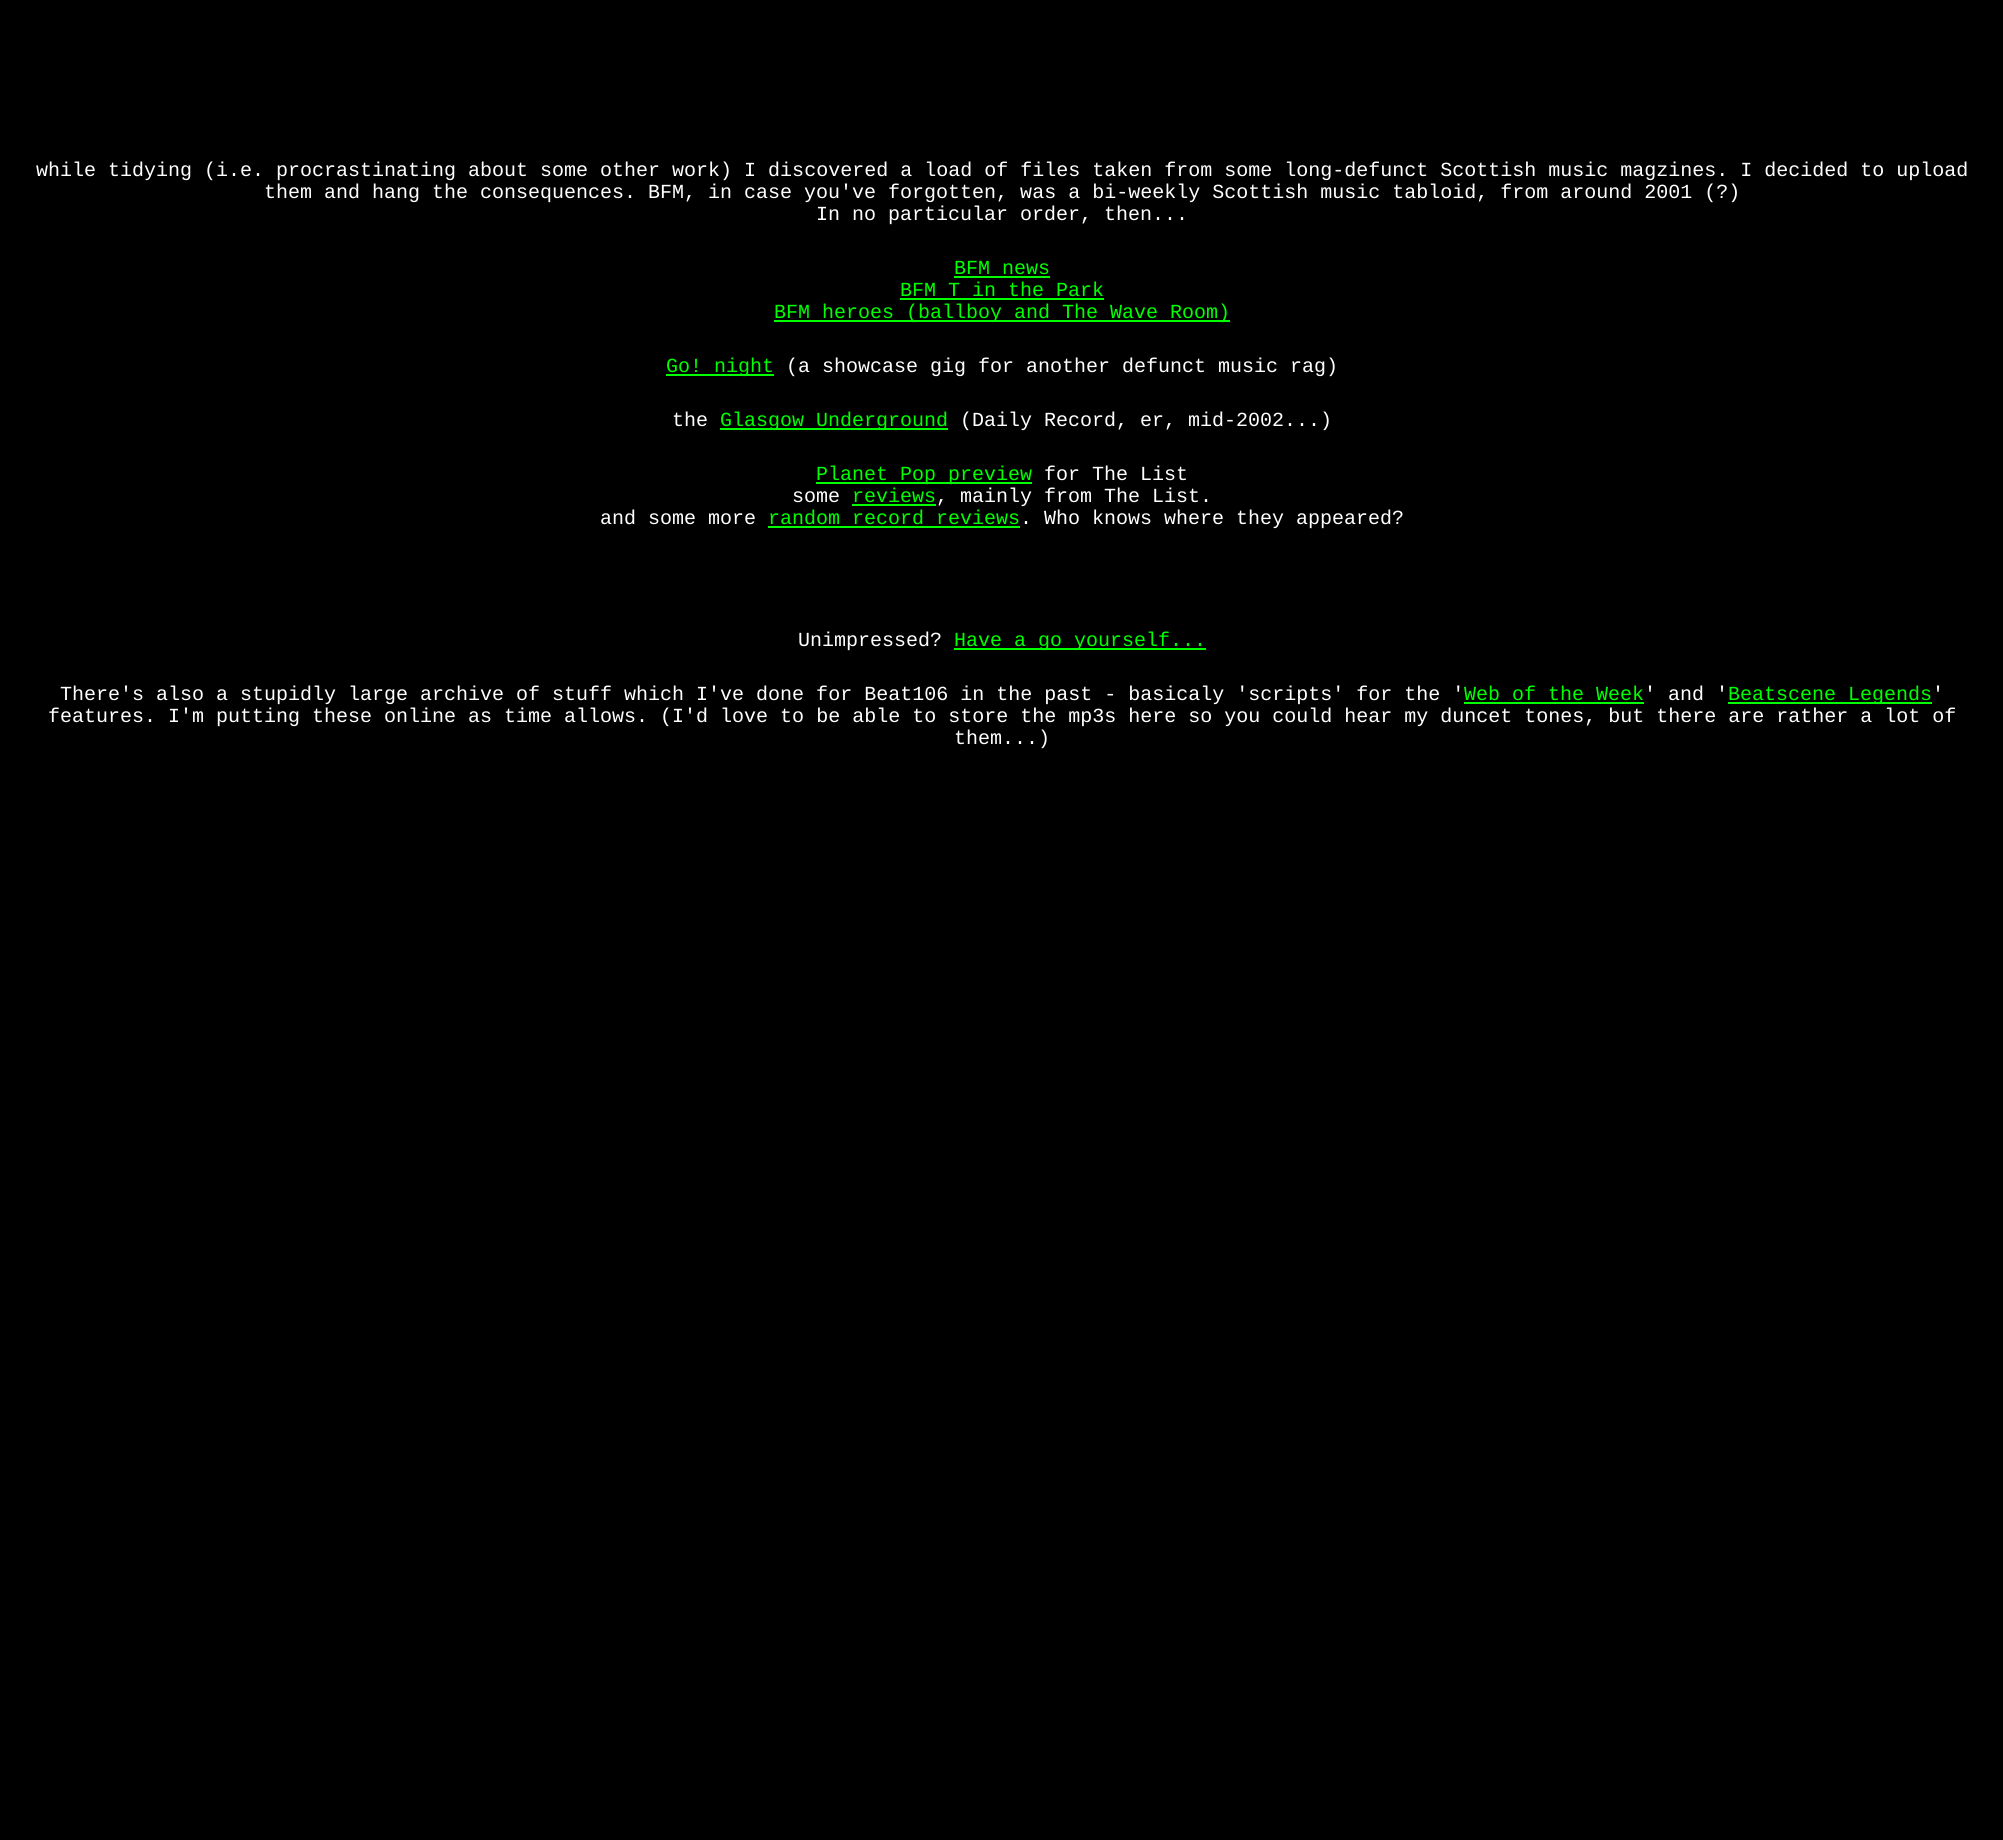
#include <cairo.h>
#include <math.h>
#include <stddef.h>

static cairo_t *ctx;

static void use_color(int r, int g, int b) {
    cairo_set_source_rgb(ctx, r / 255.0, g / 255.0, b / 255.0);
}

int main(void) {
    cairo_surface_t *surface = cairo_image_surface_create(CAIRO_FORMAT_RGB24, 2003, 1840);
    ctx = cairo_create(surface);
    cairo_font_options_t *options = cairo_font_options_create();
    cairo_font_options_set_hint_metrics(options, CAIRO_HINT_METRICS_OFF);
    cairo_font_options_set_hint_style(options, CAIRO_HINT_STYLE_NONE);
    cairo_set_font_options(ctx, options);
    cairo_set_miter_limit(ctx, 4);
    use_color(0, 0, 0);
    cairo_paint(ctx);
    cairo_select_font_face(ctx, "Liberation Mono", CAIRO_FONT_SLANT_NORMAL, CAIRO_FONT_WEIGHT_NORMAL);
    cairo_set_font_size(ctx, 20);
    use_color(255, 255, 255);
    cairo_move_to(ctx, 36, 176);
    cairo_show_text(ctx, "while tidying (i.e. procrastinating about some other work) I discovered a load of files taken from some long-defunct Scottish music magzines. I decided to upload");
    cairo_move_to(ctx, 264, 198);
    cairo_show_text(ctx, "them and hang the consequences. BFM, in case you've forgotten, was a bi-weekly Scottish music tabloid, from around 2001 (?)");
    cairo_move_to(ctx, 816, 220);
    cairo_show_text(ctx, "In no particular order, then...");
    use_color(0, 255, 0);
    cairo_move_to(ctx, 954, 274);
    cairo_show_text(ctx, "BFM news");
    cairo_rectangle(ctx, 954, 276, 96, 2);
    cairo_fill(ctx);
    cairo_move_to(ctx, 900, 296);
    cairo_show_text(ctx, "BFM T in the Park");
    cairo_rectangle(ctx, 900, 298, 204, 2);
    cairo_fill(ctx);
    cairo_rectangle(ctx, 774, 320, 456, 2);
    cairo_fill(ctx);
    cairo_move_to(ctx, 774, 318);
    cairo_show_text(ctx, "BFM heroes (ballboy and The Wave Room)");
    cairo_rectangle(ctx, 666, 374, 108, 2);
    cairo_fill(ctx);
    cairo_move_to(ctx, 666, 372);
    cairo_show_text(ctx, "Go! night");
    use_color(255, 255, 255);
    cairo_move_to(ctx, 786, 372);
    cairo_show_text(ctx, "(a showcase gig for another defunct music rag)");
    cairo_move_to(ctx, 672, 426);
    cairo_show_text(ctx, "the");
    use_color(0, 255, 0);
    cairo_rectangle(ctx, 720, 428, 228, 2);
    cairo_fill(ctx);
    cairo_move_to(ctx, 720, 426);
    cairo_show_text(ctx, "Glasgow Underground");
    use_color(255, 255, 255);
    cairo_move_to(ctx, 960, 426);
    cairo_show_text(ctx, "(Daily Record, er, mid-2002...)");
    use_color(0, 255, 0);
    cairo_rectangle(ctx, 816, 482, 216, 2);
    cairo_fill(ctx);
    cairo_move_to(ctx, 816, 480);
    cairo_show_text(ctx, "Planet Pop preview");
    use_color(255, 255, 255);
    cairo_move_to(ctx, 1044, 480);
    cairo_show_text(ctx, "for The List");
    cairo_move_to(ctx, 792, 502);
    cairo_show_text(ctx, "some");
    use_color(0, 255, 0);
    cairo_move_to(ctx, 852, 502);
    cairo_show_text(ctx, "reviews");
    use_color(255, 255, 255);
    cairo_move_to(ctx, 936, 502);
    cairo_show_text(ctx, ", mainly from The List.");
    use_color(0, 255, 0);
    cairo_rectangle(ctx, 852, 504, 84, 2);
    cairo_fill(ctx);
    use_color(255, 255, 255);
    cairo_move_to(ctx, 600, 524);
    cairo_show_text(ctx, "and some more");
    use_color(0, 255, 0);
    cairo_move_to(ctx, 768, 524);
    cairo_show_text(ctx, "random record reviews");
    cairo_rectangle(ctx, 768, 526, 252, 2);
    cairo_fill(ctx);
    use_color(255, 255, 255);
    cairo_move_to(ctx, 1020, 524);
    cairo_show_text(ctx, ". Who knows where they appeared?");
    cairo_move_to(ctx, 798, 646);
    cairo_show_text(ctx, "Unimpressed?");
    use_color(0, 255, 0);
    cairo_rectangle(ctx, 954, 648, 252, 2);
    cairo_fill(ctx);
    cairo_move_to(ctx, 954, 646);
    cairo_show_text(ctx, "Have a go yourself...");
    use_color(255, 255, 255);
    cairo_move_to(ctx, 60, 700);
    cairo_show_text(ctx, "There's also a stupidly large archive of stuff which I've done for Beat106 in the past - basicaly 'scripts' for the '");
    use_color(0, 255, 0);
    cairo_rectangle(ctx, 1464, 702, 180, 2);
    cairo_fill(ctx);
    cairo_move_to(ctx, 1464, 700);
    cairo_show_text(ctx, "Web of the Week");
    use_color(255, 255, 255);
    cairo_move_to(ctx, 1644, 700);
    cairo_show_text(ctx, "' and '");
    use_color(0, 255, 0);
    cairo_rectangle(ctx, 1728, 702, 204, 2);
    cairo_fill(ctx);
    cairo_move_to(ctx, 1728, 700);
    cairo_show_text(ctx, "Beatscene Legends");
    use_color(255, 255, 255);
    cairo_move_to(ctx, 1932, 700);
    cairo_show_text(ctx, "'");
    cairo_move_to(ctx, 48, 722);
    cairo_show_text(ctx, "features. I'm putting these online as time allows. (I'd love to be able to store the mp3s here so you could hear my duncet tones, but there are rather a lot of");
    cairo_move_to(ctx, 954, 744);
    cairo_show_text(ctx, "them...)");
    cairo_surface_write_to_png(surface, "result.png");
    cairo_font_options_destroy(options);
    cairo_destroy(ctx);
    cairo_surface_destroy(surface);
    return 0;
}
